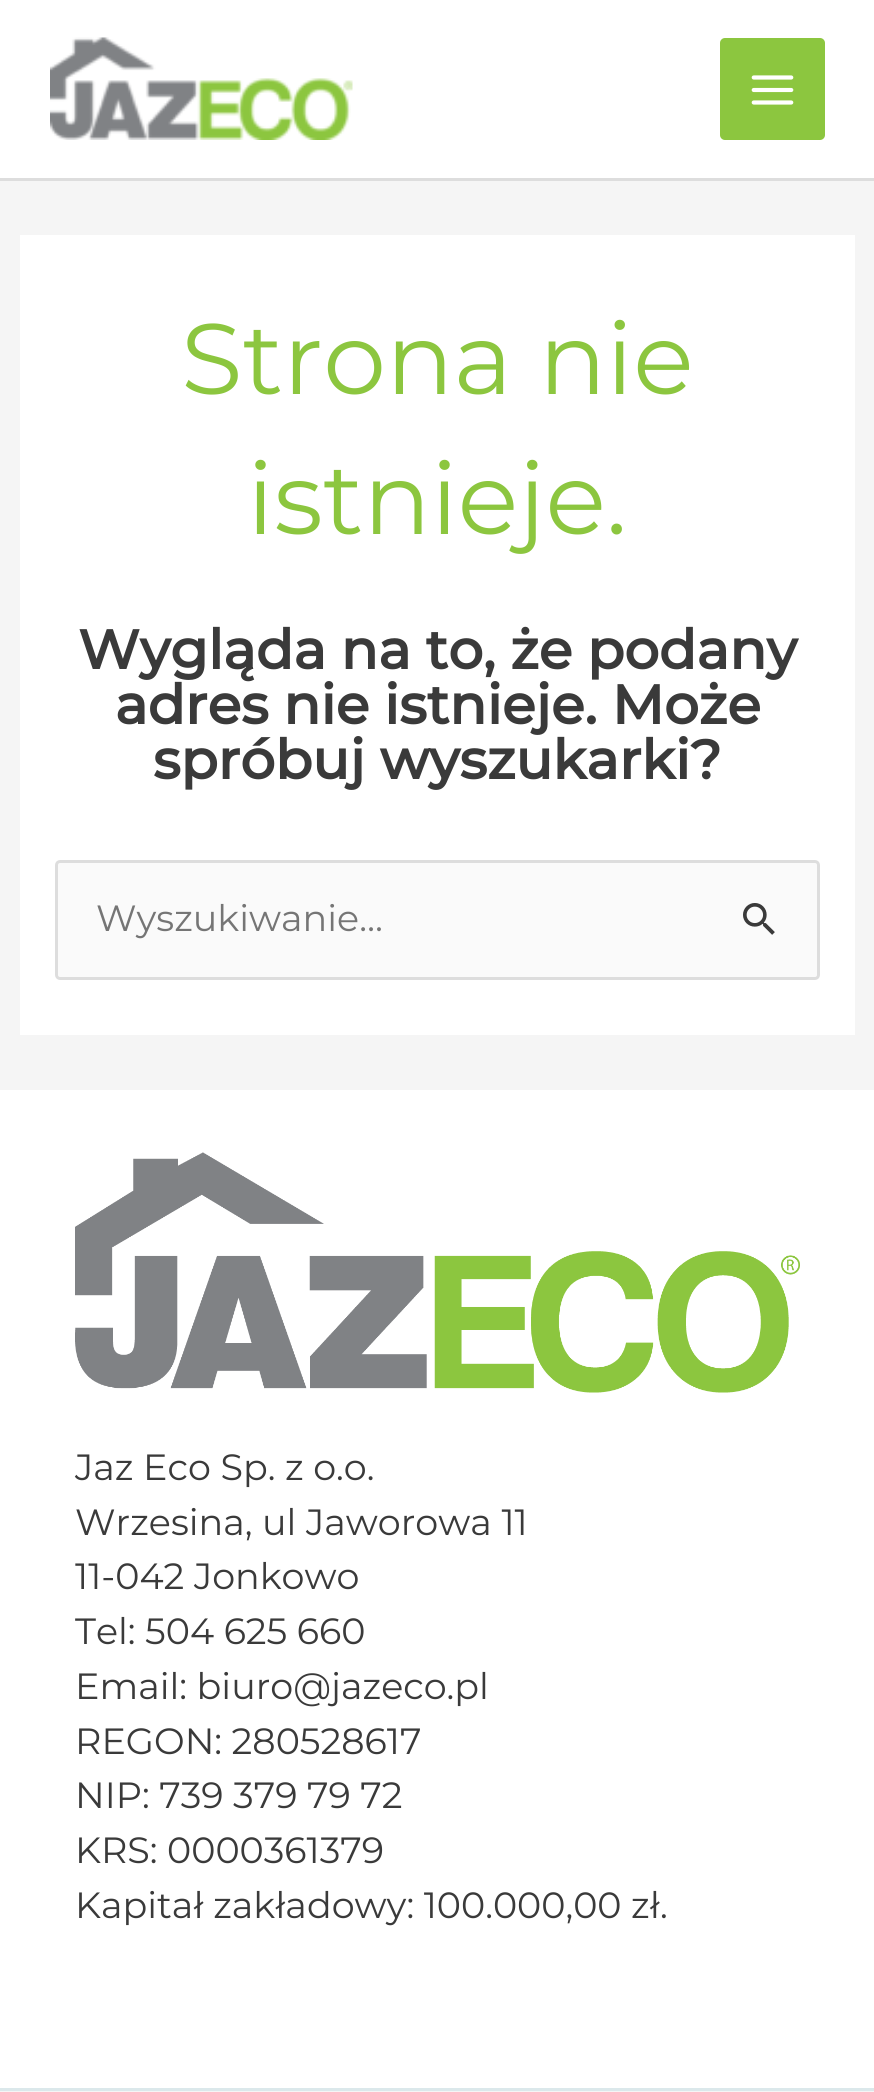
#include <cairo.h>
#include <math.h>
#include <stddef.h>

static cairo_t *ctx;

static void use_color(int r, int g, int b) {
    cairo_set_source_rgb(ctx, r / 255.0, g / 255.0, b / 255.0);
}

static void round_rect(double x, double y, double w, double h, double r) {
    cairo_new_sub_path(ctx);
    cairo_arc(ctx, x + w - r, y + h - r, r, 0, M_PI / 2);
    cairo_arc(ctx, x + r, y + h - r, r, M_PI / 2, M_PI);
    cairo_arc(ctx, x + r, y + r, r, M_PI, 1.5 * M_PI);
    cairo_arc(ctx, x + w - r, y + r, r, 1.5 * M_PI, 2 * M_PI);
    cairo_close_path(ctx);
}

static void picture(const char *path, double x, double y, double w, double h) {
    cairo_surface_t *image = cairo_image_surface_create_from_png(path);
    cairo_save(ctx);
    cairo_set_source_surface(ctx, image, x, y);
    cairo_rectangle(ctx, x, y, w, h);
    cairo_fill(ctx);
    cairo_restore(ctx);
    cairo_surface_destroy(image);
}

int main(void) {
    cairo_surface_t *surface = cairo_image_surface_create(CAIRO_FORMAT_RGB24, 874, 2092);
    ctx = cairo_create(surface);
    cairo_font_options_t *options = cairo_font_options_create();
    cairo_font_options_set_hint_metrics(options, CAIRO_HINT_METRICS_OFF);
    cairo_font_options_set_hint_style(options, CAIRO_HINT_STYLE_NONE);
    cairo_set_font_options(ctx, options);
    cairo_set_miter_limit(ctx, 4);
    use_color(245, 245, 245);
    cairo_paint(ctx);
    use_color(255, 255, 255);
    cairo_rectangle(ctx, 0, 0, 874, 178);
    cairo_fill(ctx);
    use_color(221, 221, 221);
    cairo_rectangle(ctx, 0, 178, 874, 3);
    cairo_fill(ctx);
    picture("img1.png", 50, 37, 303, 103);
    use_color(140, 198, 63);
    round_rect(720, 38, 105, 102, 5);
    cairo_fill(ctx);
    picture("img2.png", 751, 75, 43, 30);
    use_color(255, 255, 255);
    cairo_rectangle(ctx, 20, 235, 835, 800);
    cairo_fill(ctx);
    cairo_select_font_face(ctx, "Montserrat", CAIRO_FONT_SLANT_NORMAL, CAIRO_FONT_WEIGHT_NORMAL);
    cairo_set_font_size(ctx, 100);
    use_color(140, 198, 63);
    cairo_move_to(ctx, 181, 394);
    cairo_show_text(ctx, "Strona nie");
    cairo_move_to(ctx, 247, 534);
    cairo_show_text(ctx, "istnieje.");
    cairo_select_font_face(ctx, "Montserrat", CAIRO_FONT_SLANT_NORMAL, CAIRO_FONT_WEIGHT_BOLD);
    cairo_set_font_size(ctx, 54.75);
    use_color(58, 58, 58);
    cairo_move_to(ctx, 78, 669);
    cairo_show_text(ctx, "Wygląda na to, że podany");
    cairo_move_to(ctx, 115, 724);
    cairo_show_text(ctx, "adres nie istnieje. Może");
    cairo_move_to(ctx, 153, 779);
    cairo_show_text(ctx, "spróbuj wyszukarki?");
    use_color(250, 250, 250);
    round_rect(56.5, 861.5, 762, 117, 3.5);
    cairo_fill_preserve(ctx);
    use_color(221, 221, 221);
    cairo_set_line_width(ctx, 3);
    cairo_stroke(ctx);
    cairo_select_font_face(ctx, "Montserrat", CAIRO_FONT_SLANT_NORMAL, CAIRO_FONT_WEIGHT_NORMAL);
    cairo_set_font_size(ctx, 36.5);
    use_color(117, 117, 117);
    cairo_move_to(ctx, 96, 931);
    cairo_show_text(ctx, "Wyszukiwanie…");
    picture("img3.png", 743, 903, 32, 32);
    use_color(255, 255, 255);
    cairo_rectangle(ctx, 0, 1090, 874, 998);
    cairo_fill(ctx);
    picture("img4.png", 75, 1152, 725, 241);
    use_color(58, 58, 58);
    cairo_move_to(ctx, 75, 1480);
    cairo_show_text(ctx, "Jaz Eco Sp. z o.o.");
    cairo_move_to(ctx, 75, 1535);
    cairo_show_text(ctx, "Wrzesina, ul Jaworowa 11");
    cairo_move_to(ctx, 75, 1589);
    cairo_show_text(ctx, "11-042 Jonkowo");
    cairo_move_to(ctx, 75, 1644);
    cairo_show_text(ctx, "Tel: 504 625 660");
    cairo_move_to(ctx, 75, 1699);
    cairo_show_text(ctx, "Email: biuro@jazeco.pl");
    cairo_move_to(ctx, 75, 1754);
    cairo_show_text(ctx, "REGON: 280528617");
    cairo_move_to(ctx, 75, 1808);
    cairo_show_text(ctx, "NIP: 739 379 79 72");
    cairo_move_to(ctx, 75, 1863);
    cairo_show_text(ctx, "KRS: 0000361379");
    cairo_move_to(ctx, 75, 1918);
    cairo_show_text(ctx, "Kapitał zakładowy: 100.000,00 zł.");
    use_color(219, 232, 235);
    cairo_rectangle(ctx, 0, 2088, 874, 3);
    cairo_fill(ctx);
    cairo_surface_write_to_png(surface, "result.png");
    cairo_font_options_destroy(options);
    cairo_destroy(ctx);
    cairo_surface_destroy(surface);
    return 0;
}
